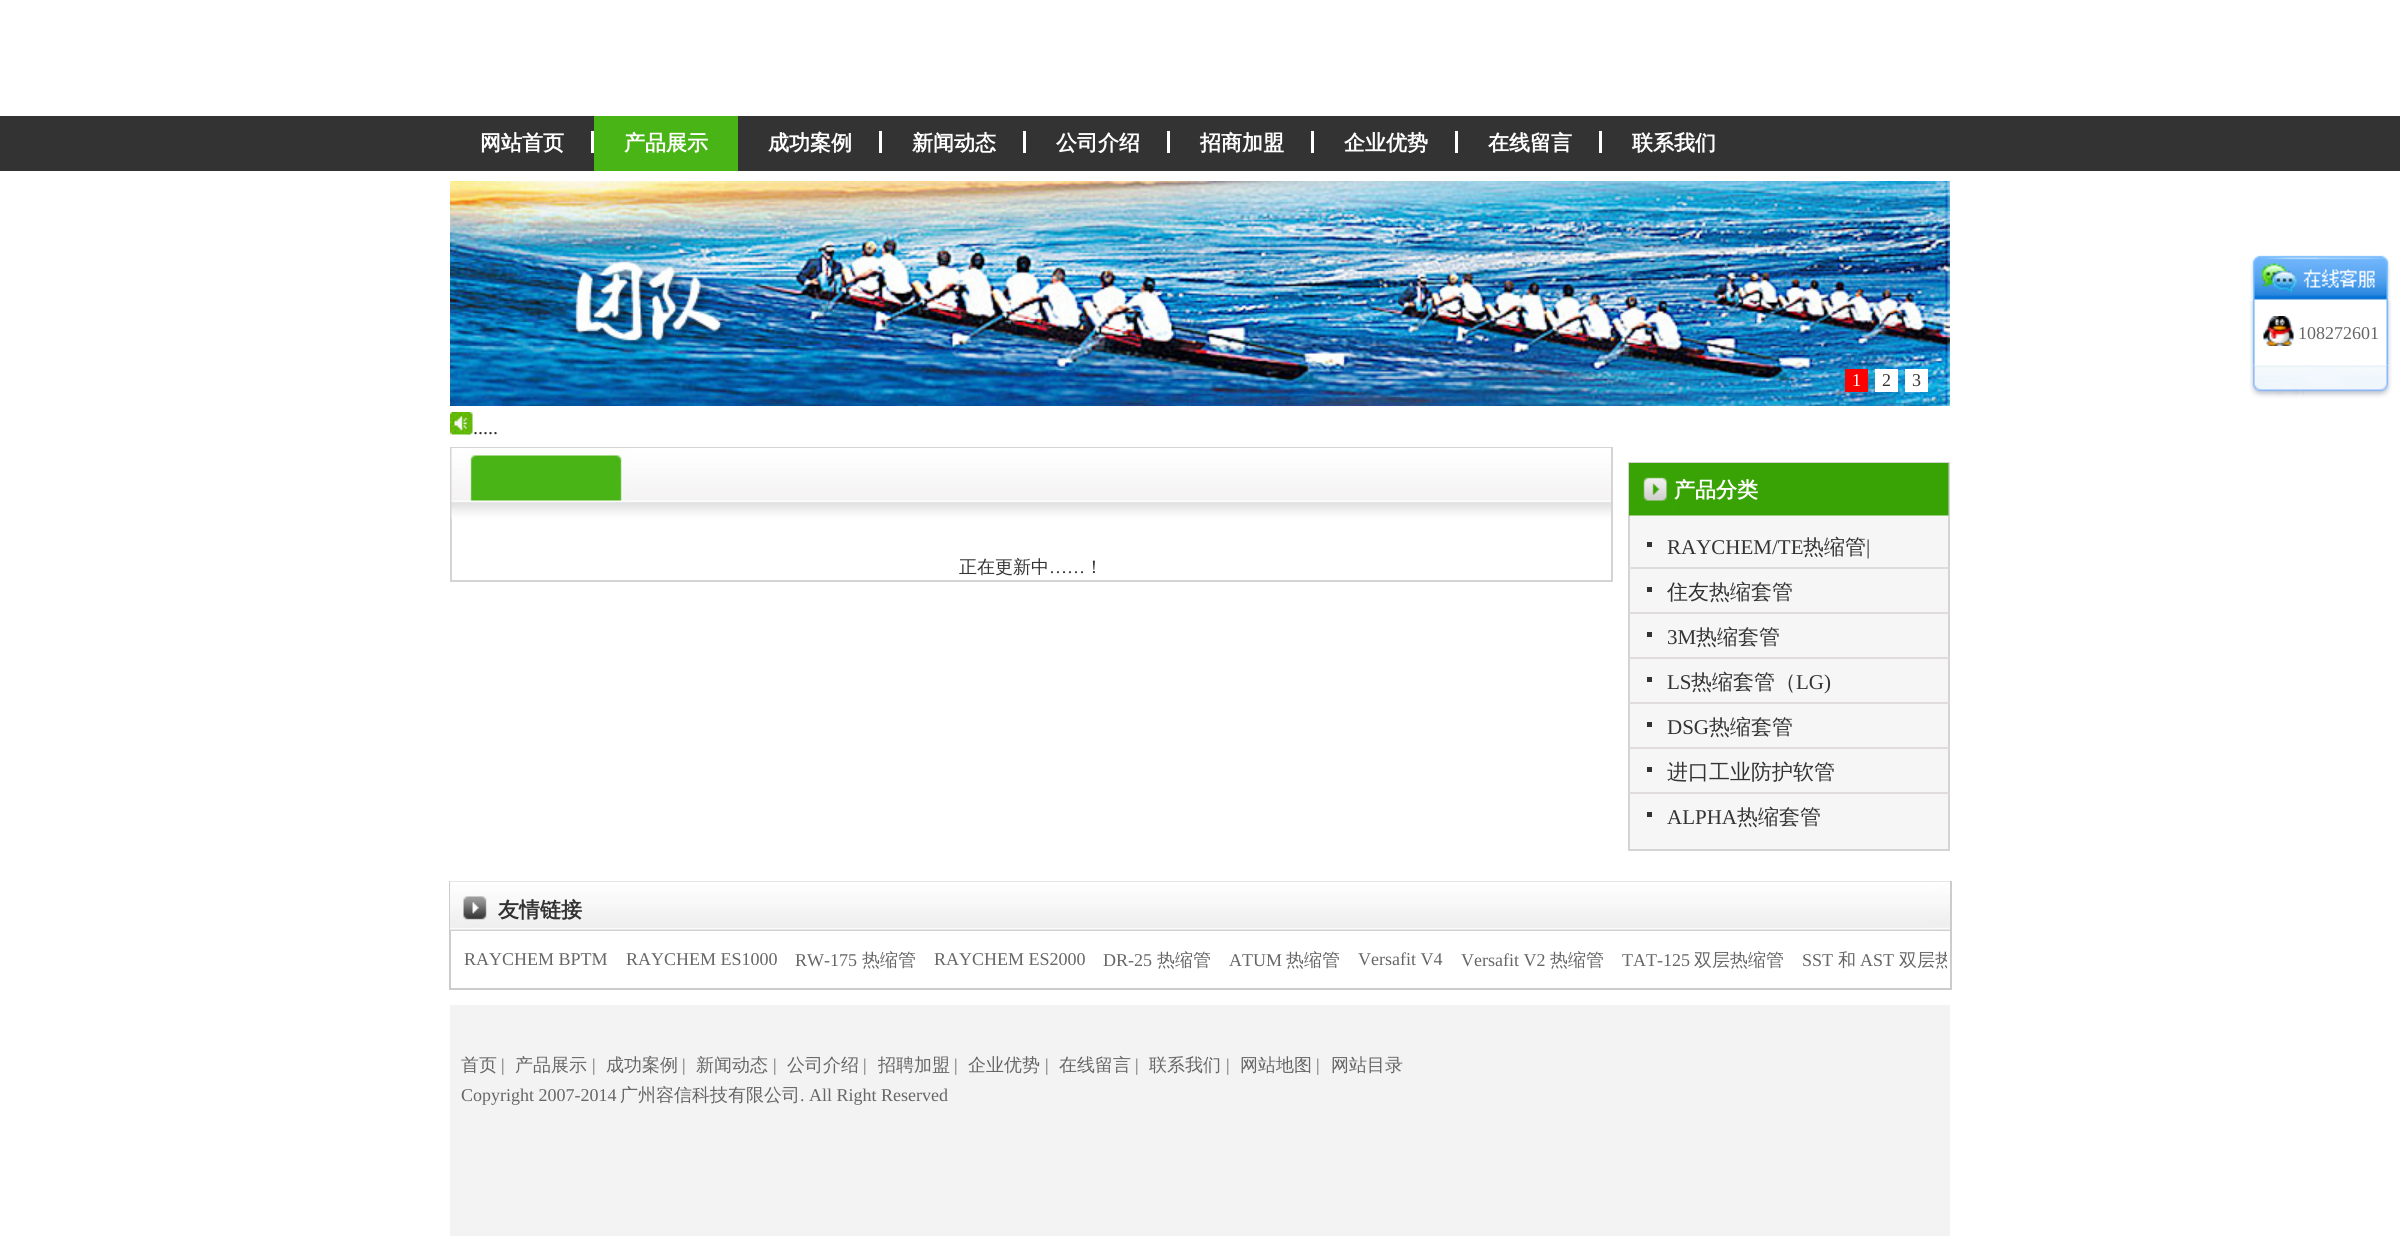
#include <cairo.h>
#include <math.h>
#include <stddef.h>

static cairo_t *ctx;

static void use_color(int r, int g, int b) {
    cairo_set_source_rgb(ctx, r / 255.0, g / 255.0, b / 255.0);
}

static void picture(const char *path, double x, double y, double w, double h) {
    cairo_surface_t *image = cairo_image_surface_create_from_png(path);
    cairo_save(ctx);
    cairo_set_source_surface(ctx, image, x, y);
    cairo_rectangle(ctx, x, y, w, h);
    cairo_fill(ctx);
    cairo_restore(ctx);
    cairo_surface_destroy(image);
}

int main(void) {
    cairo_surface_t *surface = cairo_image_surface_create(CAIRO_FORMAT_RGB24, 2400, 1236);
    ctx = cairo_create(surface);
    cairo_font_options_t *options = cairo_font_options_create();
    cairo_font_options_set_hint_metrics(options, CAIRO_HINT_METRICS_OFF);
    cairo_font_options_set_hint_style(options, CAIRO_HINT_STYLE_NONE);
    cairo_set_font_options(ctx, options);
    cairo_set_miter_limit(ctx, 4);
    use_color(255, 255, 255);
    cairo_paint(ctx);
    use_color(51, 51, 51);
    cairo_rectangle(ctx, 0, 116, 2400, 55);
    cairo_fill(ctx);
    use_color(255, 255, 255);
    cairo_rectangle(ctx, 591, 131, 3, 22);
    cairo_fill(ctx);
    cairo_select_font_face(ctx, "WenQuanYi Zen Hei", CAIRO_FONT_SLANT_NORMAL, CAIRO_FONT_WEIGHT_BOLD);
    cairo_set_font_size(ctx, 21);
    cairo_move_to(ctx, 480, 150);
    cairo_show_text(ctx, "网站首页");
    use_color(73, 180, 22);
    cairo_rectangle(ctx, 594, 116, 144, 55);
    cairo_fill(ctx);
    use_color(255, 255, 255);
    cairo_move_to(ctx, 624, 150);
    cairo_show_text(ctx, "产品展示");
    cairo_rectangle(ctx, 879, 131, 3, 22);
    cairo_fill(ctx);
    cairo_move_to(ctx, 768, 150);
    cairo_show_text(ctx, "成功案例");
    cairo_rectangle(ctx, 1023, 131, 3, 22);
    cairo_fill(ctx);
    cairo_move_to(ctx, 912, 150);
    cairo_show_text(ctx, "新闻动态");
    cairo_rectangle(ctx, 1167, 131, 3, 22);
    cairo_fill(ctx);
    cairo_move_to(ctx, 1056, 150);
    cairo_show_text(ctx, "公司介绍");
    cairo_rectangle(ctx, 1311, 131, 3, 22);
    cairo_fill(ctx);
    cairo_move_to(ctx, 1200, 150);
    cairo_show_text(ctx, "招商加盟");
    cairo_rectangle(ctx, 1455, 131, 3, 22);
    cairo_fill(ctx);
    cairo_move_to(ctx, 1344, 150);
    cairo_show_text(ctx, "企业优势");
    cairo_rectangle(ctx, 1599, 131, 3, 22);
    cairo_fill(ctx);
    cairo_move_to(ctx, 1488, 150);
    cairo_show_text(ctx, "在线留言");
    cairo_move_to(ctx, 1632, 150);
    cairo_show_text(ctx, "联系我们");
    picture("img1.png", 2250, 255, 141, 46);
    picture("img2.png", 2249, 301, 143, 65);
    picture("img3.png", 2263, 316, 31, 30);
    cairo_select_font_face(ctx, "Liberation Serif", CAIRO_FONT_SLANT_NORMAL, CAIRO_FONT_WEIGHT_NORMAL);
    cairo_set_font_size(ctx, 18);
    use_color(102, 102, 102);
    cairo_move_to(ctx, 2298, 339);
    cairo_show_text(ctx, "108272601");
    picture("img4.png", 2249, 365, 143, 34);
    picture("img5.png", 450, 181, 1500, 225);
    use_color(255, 0, 0);
    cairo_rectangle(ctx, 1845, 369, 23, 23);
    cairo_fill(ctx);
    use_color(255, 255, 255);
    cairo_move_to(ctx, 1852, 386);
    cairo_show_text(ctx, "1");
    cairo_rectangle(ctx, 1875, 369, 23, 23);
    cairo_fill(ctx);
    use_color(51, 51, 51);
    cairo_move_to(ctx, 1882, 386);
    cairo_show_text(ctx, "2");
    use_color(255, 255, 255);
    cairo_rectangle(ctx, 1905, 369, 23, 23);
    cairo_fill(ctx);
    use_color(51, 51, 51);
    cairo_move_to(ctx, 1912, 386);
    cairo_show_text(ctx, "3");
    picture("img6.png", 450, 412, 23, 23);
    cairo_set_font_size(ctx, 20);
    cairo_move_to(ctx, 473, 434);
    cairo_show_text(ctx, ".....");
    cairo_rectangle(ctx, 451, 448, 1161, 133);
    use_color(212, 212, 212);
    cairo_stroke(ctx);
    picture("img7.png", 451, 448, 1160, 71);
    cairo_select_font_face(ctx, "WenQuanYi Zen Hei Medium", CAIRO_FONT_SLANT_NORMAL, CAIRO_FONT_WEIGHT_NORMAL);
    cairo_set_font_size(ctx, 18);
    use_color(51, 51, 51);
    cairo_move_to(ctx, 959, 573);
    cairo_show_text(ctx, "正在更新中");
    cairo_select_font_face(ctx, "Liberation Serif", CAIRO_FONT_SLANT_NORMAL, CAIRO_FONT_WEIGHT_NORMAL);
    cairo_move_to(ctx, 1049, 573);
    cairo_show_text(ctx, "……");
    cairo_select_font_face(ctx, "WenQuanYi Zen Hei Medium", CAIRO_FONT_SLANT_NORMAL, CAIRO_FONT_WEIGHT_NORMAL);
    cairo_move_to(ctx, 1085, 573);
    cairo_show_text(ctx, "！");
    use_color(246, 246, 246);
    cairo_rectangle(ctx, 1630, 515, 318, 334);
    cairo_fill(ctx);
    cairo_rectangle(ctx, 1629, 463, 320, 387);
    use_color(212, 212, 212);
    cairo_stroke(ctx);
    picture("img8.png", 1629, 463, 320, 53);
    cairo_select_font_face(ctx, "WenQuanYi Zen Hei", CAIRO_FONT_SLANT_NORMAL, CAIRO_FONT_WEIGHT_BOLD);
    cairo_set_font_size(ctx, 21);
    use_color(255, 255, 255);
    cairo_move_to(ctx, 1674, 497);
    cairo_show_text(ctx, "产品分类");
    use_color(51, 51, 51);
    cairo_rectangle(ctx, 1647, 542, 5, 5);
    cairo_fill(ctx);
    use_color(224, 220, 220);
    cairo_rectangle(ctx, 1629, 567, 320, 2);
    cairo_fill(ctx);
    cairo_select_font_face(ctx, "Liberation Serif", CAIRO_FONT_SLANT_NORMAL, CAIRO_FONT_WEIGHT_NORMAL);
    use_color(51, 51, 51);
    cairo_move_to(ctx, 1667, 554);
    cairo_show_text(ctx, "RAYCHEM/TE");
    cairo_select_font_face(ctx, "WenQuanYi Zen Hei Medium", CAIRO_FONT_SLANT_NORMAL, CAIRO_FONT_WEIGHT_NORMAL);
    cairo_move_to(ctx, 1803, 554);
    cairo_show_text(ctx, "热缩管");
    cairo_select_font_face(ctx, "Liberation Serif", CAIRO_FONT_SLANT_NORMAL, CAIRO_FONT_WEIGHT_NORMAL);
    cairo_move_to(ctx, 1866, 554);
    cairo_show_text(ctx, "|");
    cairo_rectangle(ctx, 1647, 587, 5, 5);
    cairo_fill(ctx);
    use_color(224, 220, 220);
    cairo_rectangle(ctx, 1629, 612, 320, 2);
    cairo_fill(ctx);
    cairo_select_font_face(ctx, "WenQuanYi Zen Hei Medium", CAIRO_FONT_SLANT_NORMAL, CAIRO_FONT_WEIGHT_NORMAL);
    use_color(51, 51, 51);
    cairo_move_to(ctx, 1667, 599);
    cairo_show_text(ctx, "住友热缩套管");
    cairo_rectangle(ctx, 1647, 632, 5, 5);
    cairo_fill(ctx);
    use_color(224, 220, 220);
    cairo_rectangle(ctx, 1629, 657, 320, 2);
    cairo_fill(ctx);
    cairo_select_font_face(ctx, "Liberation Serif", CAIRO_FONT_SLANT_NORMAL, CAIRO_FONT_WEIGHT_NORMAL);
    use_color(51, 51, 51);
    cairo_move_to(ctx, 1667, 644);
    cairo_show_text(ctx, "3M");
    cairo_select_font_face(ctx, "WenQuanYi Zen Hei Medium", CAIRO_FONT_SLANT_NORMAL, CAIRO_FONT_WEIGHT_NORMAL);
    cairo_move_to(ctx, 1696, 644);
    cairo_show_text(ctx, "热缩套管");
    cairo_rectangle(ctx, 1647, 677, 5, 5);
    cairo_fill(ctx);
    use_color(224, 220, 220);
    cairo_rectangle(ctx, 1629, 702, 320, 2);
    cairo_fill(ctx);
    cairo_select_font_face(ctx, "Liberation Serif", CAIRO_FONT_SLANT_NORMAL, CAIRO_FONT_WEIGHT_NORMAL);
    use_color(51, 51, 51);
    cairo_move_to(ctx, 1667, 689);
    cairo_show_text(ctx, "LS");
    cairo_select_font_face(ctx, "WenQuanYi Zen Hei Medium", CAIRO_FONT_SLANT_NORMAL, CAIRO_FONT_WEIGHT_NORMAL);
    cairo_move_to(ctx, 1691, 689);
    cairo_show_text(ctx, "热缩套管（");
    cairo_select_font_face(ctx, "Liberation Serif", CAIRO_FONT_SLANT_NORMAL, CAIRO_FONT_WEIGHT_NORMAL);
    cairo_move_to(ctx, 1796, 689);
    cairo_show_text(ctx, "LG)");
    cairo_rectangle(ctx, 1647, 722, 5, 5);
    cairo_fill(ctx);
    use_color(224, 220, 220);
    cairo_rectangle(ctx, 1629, 747, 320, 2);
    cairo_fill(ctx);
    use_color(51, 51, 51);
    cairo_move_to(ctx, 1667, 734);
    cairo_show_text(ctx, "DSG");
    cairo_select_font_face(ctx, "WenQuanYi Zen Hei Medium", CAIRO_FONT_SLANT_NORMAL, CAIRO_FONT_WEIGHT_NORMAL);
    cairo_move_to(ctx, 1709, 734);
    cairo_show_text(ctx, "热缩套管");
    cairo_rectangle(ctx, 1647, 767, 5, 5);
    cairo_fill(ctx);
    use_color(224, 220, 220);
    cairo_rectangle(ctx, 1629, 792, 320, 2);
    cairo_fill(ctx);
    use_color(51, 51, 51);
    cairo_move_to(ctx, 1667, 779);
    cairo_show_text(ctx, "进口工业防护软管");
    cairo_rectangle(ctx, 1647, 812, 5, 5);
    cairo_fill(ctx);
    cairo_select_font_face(ctx, "Liberation Serif", CAIRO_FONT_SLANT_NORMAL, CAIRO_FONT_WEIGHT_NORMAL);
    cairo_move_to(ctx, 1667, 824);
    cairo_show_text(ctx, "ALPHA");
    cairo_select_font_face(ctx, "WenQuanYi Zen Hei Medium", CAIRO_FONT_SLANT_NORMAL, CAIRO_FONT_WEIGHT_NORMAL);
    cairo_move_to(ctx, 1737, 824);
    cairo_show_text(ctx, "热缩套管");
    cairo_rectangle(ctx, 450, 882, 1501, 107);
    use_color(204, 204, 204);
    cairo_stroke(ctx);
    picture("img9.png", 450, 881, 1500, 50);
    cairo_select_font_face(ctx, "WenQuanYi Zen Hei", CAIRO_FONT_SLANT_NORMAL, CAIRO_FONT_WEIGHT_BOLD);
    use_color(51, 51, 51);
    cairo_move_to(ctx, 498, 917);
    cairo_show_text(ctx, "友情链接");
    cairo_select_font_face(ctx, "Liberation Serif", CAIRO_FONT_SLANT_NORMAL, CAIRO_FONT_WEIGHT_NORMAL);
    cairo_set_font_size(ctx, 18);
    use_color(102, 102, 102);
    cairo_move_to(ctx, 464, 965);
    cairo_show_text(ctx, "RAYCHEM BPTM");
    cairo_move_to(ctx, 626, 965);
    cairo_show_text(ctx, "RAYCHEM ES1000");
    cairo_move_to(ctx, 795, 966);
    cairo_show_text(ctx, "RW-175");
    cairo_select_font_face(ctx, "WenQuanYi Zen Hei Medium", CAIRO_FONT_SLANT_NORMAL, CAIRO_FONT_WEIGHT_NORMAL);
    cairo_move_to(ctx, 862, 966);
    cairo_show_text(ctx, "热缩管");
    cairo_select_font_face(ctx, "Liberation Serif", CAIRO_FONT_SLANT_NORMAL, CAIRO_FONT_WEIGHT_NORMAL);
    cairo_move_to(ctx, 934, 965);
    cairo_show_text(ctx, "RAYCHEM ES2000");
    cairo_move_to(ctx, 1103, 966);
    cairo_show_text(ctx, "DR-25");
    cairo_select_font_face(ctx, "WenQuanYi Zen Hei Medium", CAIRO_FONT_SLANT_NORMAL, CAIRO_FONT_WEIGHT_NORMAL);
    cairo_move_to(ctx, 1157, 966);
    cairo_show_text(ctx, "热缩管");
    cairo_select_font_face(ctx, "Liberation Serif", CAIRO_FONT_SLANT_NORMAL, CAIRO_FONT_WEIGHT_NORMAL);
    cairo_move_to(ctx, 1229, 966);
    cairo_show_text(ctx, "ATUM");
    cairo_select_font_face(ctx, "WenQuanYi Zen Hei Medium", CAIRO_FONT_SLANT_NORMAL, CAIRO_FONT_WEIGHT_NORMAL);
    cairo_move_to(ctx, 1286, 966);
    cairo_show_text(ctx, "热缩管");
    cairo_select_font_face(ctx, "Liberation Serif", CAIRO_FONT_SLANT_NORMAL, CAIRO_FONT_WEIGHT_NORMAL);
    cairo_move_to(ctx, 1358, 965);
    cairo_show_text(ctx, "Versafit V4");
    cairo_move_to(ctx, 1461, 966);
    cairo_show_text(ctx, "Versafit V2");
    cairo_select_font_face(ctx, "WenQuanYi Zen Hei Medium", CAIRO_FONT_SLANT_NORMAL, CAIRO_FONT_WEIGHT_NORMAL);
    cairo_move_to(ctx, 1550, 966);
    cairo_show_text(ctx, "热缩管");
    cairo_select_font_face(ctx, "Liberation Serif", CAIRO_FONT_SLANT_NORMAL, CAIRO_FONT_WEIGHT_NORMAL);
    cairo_move_to(ctx, 1622, 966);
    cairo_show_text(ctx, "TAT-125");
    cairo_select_font_face(ctx, "WenQuanYi Zen Hei Medium", CAIRO_FONT_SLANT_NORMAL, CAIRO_FONT_WEIGHT_NORMAL);
    cairo_move_to(ctx, 1694, 966);
    cairo_show_text(ctx, "双层热缩管");
    cairo_select_font_face(ctx, "Liberation Serif", CAIRO_FONT_SLANT_NORMAL, CAIRO_FONT_WEIGHT_NORMAL);
    cairo_move_to(ctx, 1802, 966);
    cairo_show_text(ctx, "SST");
    cairo_select_font_face(ctx, "WenQuanYi Zen Hei Medium", CAIRO_FONT_SLANT_NORMAL, CAIRO_FONT_WEIGHT_NORMAL);
    cairo_move_to(ctx, 1838, 966);
    cairo_show_text(ctx, "和");
    cairo_select_font_face(ctx, "Liberation Serif", CAIRO_FONT_SLANT_NORMAL, CAIRO_FONT_WEIGHT_NORMAL);
    cairo_move_to(ctx, 1860, 966);
    cairo_show_text(ctx, "AST");
    cairo_save(ctx);
    cairo_rectangle(ctx, 450, 944, 1497, 45);
    cairo_clip(ctx);
    cairo_select_font_face(ctx, "WenQuanYi Zen Hei Medium", CAIRO_FONT_SLANT_NORMAL, CAIRO_FONT_WEIGHT_NORMAL);
    cairo_move_to(ctx, 1899, 966);
    cairo_show_text(ctx, "双层热");
    cairo_restore(ctx);
    use_color(243, 243, 243);
    cairo_rectangle(ctx, 450, 1005, 1500, 231);
    cairo_fill(ctx);
    cairo_select_font_face(ctx, "WenQuanYi Zen Hei Medium", CAIRO_FONT_SLANT_NORMAL, CAIRO_FONT_WEIGHT_NORMAL);
    use_color(102, 102, 102);
    cairo_move_to(ctx, 461, 1071);
    cairo_show_text(ctx, "首页");
    cairo_select_font_face(ctx, "Liberation Serif", CAIRO_FONT_SLANT_NORMAL, CAIRO_FONT_WEIGHT_NORMAL);
    cairo_move_to(ctx, 501, 1071);
    cairo_show_text(ctx, "|");
    cairo_select_font_face(ctx, "WenQuanYi Zen Hei Medium", CAIRO_FONT_SLANT_NORMAL, CAIRO_FONT_WEIGHT_NORMAL);
    cairo_move_to(ctx, 515, 1071);
    cairo_show_text(ctx, "产品展示");
    cairo_select_font_face(ctx, "Liberation Serif", CAIRO_FONT_SLANT_NORMAL, CAIRO_FONT_WEIGHT_NORMAL);
    cairo_move_to(ctx, 592, 1071);
    cairo_show_text(ctx, "|");
    cairo_select_font_face(ctx, "WenQuanYi Zen Hei Medium", CAIRO_FONT_SLANT_NORMAL, CAIRO_FONT_WEIGHT_NORMAL);
    cairo_move_to(ctx, 606, 1071);
    cairo_show_text(ctx, "成功案例");
    cairo_select_font_face(ctx, "Liberation Serif", CAIRO_FONT_SLANT_NORMAL, CAIRO_FONT_WEIGHT_NORMAL);
    cairo_move_to(ctx, 682, 1071);
    cairo_show_text(ctx, "|");
    cairo_select_font_face(ctx, "WenQuanYi Zen Hei Medium", CAIRO_FONT_SLANT_NORMAL, CAIRO_FONT_WEIGHT_NORMAL);
    cairo_move_to(ctx, 696, 1071);
    cairo_show_text(ctx, "新闻动态");
    cairo_select_font_face(ctx, "Liberation Serif", CAIRO_FONT_SLANT_NORMAL, CAIRO_FONT_WEIGHT_NORMAL);
    cairo_move_to(ctx, 773, 1071);
    cairo_show_text(ctx, "|");
    cairo_select_font_face(ctx, "WenQuanYi Zen Hei Medium", CAIRO_FONT_SLANT_NORMAL, CAIRO_FONT_WEIGHT_NORMAL);
    cairo_move_to(ctx, 787, 1071);
    cairo_show_text(ctx, "公司介绍");
    cairo_select_font_face(ctx, "Liberation Serif", CAIRO_FONT_SLANT_NORMAL, CAIRO_FONT_WEIGHT_NORMAL);
    cairo_move_to(ctx, 863, 1071);
    cairo_show_text(ctx, "|");
    cairo_select_font_face(ctx, "WenQuanYi Zen Hei Medium", CAIRO_FONT_SLANT_NORMAL, CAIRO_FONT_WEIGHT_NORMAL);
    cairo_move_to(ctx, 878, 1071);
    cairo_show_text(ctx, "招聘加盟");
    cairo_select_font_face(ctx, "Liberation Serif", CAIRO_FONT_SLANT_NORMAL, CAIRO_FONT_WEIGHT_NORMAL);
    cairo_move_to(ctx, 954, 1071);
    cairo_show_text(ctx, "|");
    cairo_select_font_face(ctx, "WenQuanYi Zen Hei Medium", CAIRO_FONT_SLANT_NORMAL, CAIRO_FONT_WEIGHT_NORMAL);
    cairo_move_to(ctx, 968, 1071);
    cairo_show_text(ctx, "企业优势");
    cairo_select_font_face(ctx, "Liberation Serif", CAIRO_FONT_SLANT_NORMAL, CAIRO_FONT_WEIGHT_NORMAL);
    cairo_move_to(ctx, 1045, 1071);
    cairo_show_text(ctx, "|");
    cairo_select_font_face(ctx, "WenQuanYi Zen Hei Medium", CAIRO_FONT_SLANT_NORMAL, CAIRO_FONT_WEIGHT_NORMAL);
    cairo_move_to(ctx, 1059, 1071);
    cairo_show_text(ctx, "在线留言");
    cairo_select_font_face(ctx, "Liberation Serif", CAIRO_FONT_SLANT_NORMAL, CAIRO_FONT_WEIGHT_NORMAL);
    cairo_move_to(ctx, 1135, 1071);
    cairo_show_text(ctx, "|");
    cairo_select_font_face(ctx, "WenQuanYi Zen Hei Medium", CAIRO_FONT_SLANT_NORMAL, CAIRO_FONT_WEIGHT_NORMAL);
    cairo_move_to(ctx, 1149, 1071);
    cairo_show_text(ctx, "联系我们");
    cairo_select_font_face(ctx, "Liberation Serif", CAIRO_FONT_SLANT_NORMAL, CAIRO_FONT_WEIGHT_NORMAL);
    cairo_move_to(ctx, 1226, 1071);
    cairo_show_text(ctx, "|");
    cairo_select_font_face(ctx, "WenQuanYi Zen Hei Medium", CAIRO_FONT_SLANT_NORMAL, CAIRO_FONT_WEIGHT_NORMAL);
    cairo_move_to(ctx, 1240, 1071);
    cairo_show_text(ctx, "网站地图");
    cairo_select_font_face(ctx, "Liberation Serif", CAIRO_FONT_SLANT_NORMAL, CAIRO_FONT_WEIGHT_NORMAL);
    cairo_move_to(ctx, 1316, 1071);
    cairo_show_text(ctx, "|");
    cairo_select_font_face(ctx, "WenQuanYi Zen Hei Medium", CAIRO_FONT_SLANT_NORMAL, CAIRO_FONT_WEIGHT_NORMAL);
    cairo_move_to(ctx, 1331, 1071);
    cairo_show_text(ctx, "网站目录");
    cairo_select_font_face(ctx, "Liberation Serif", CAIRO_FONT_SLANT_NORMAL, CAIRO_FONT_WEIGHT_NORMAL);
    cairo_move_to(ctx, 461, 1101);
    cairo_show_text(ctx, "Copyright 2007-2014");
    cairo_select_font_face(ctx, "WenQuanYi Zen Hei Medium", CAIRO_FONT_SLANT_NORMAL, CAIRO_FONT_WEIGHT_NORMAL);
    cairo_move_to(ctx, 620, 1101);
    cairo_show_text(ctx, "广州容信科技有限公司");
    cairo_select_font_face(ctx, "Liberation Serif", CAIRO_FONT_SLANT_NORMAL, CAIRO_FONT_WEIGHT_NORMAL);
    cairo_move_to(ctx, 800, 1101);
    cairo_show_text(ctx, ". All Right Reserved");
    cairo_surface_write_to_png(surface, "result.png");
    cairo_font_options_destroy(options);
    cairo_destroy(ctx);
    cairo_surface_destroy(surface);
    return 0;
}
